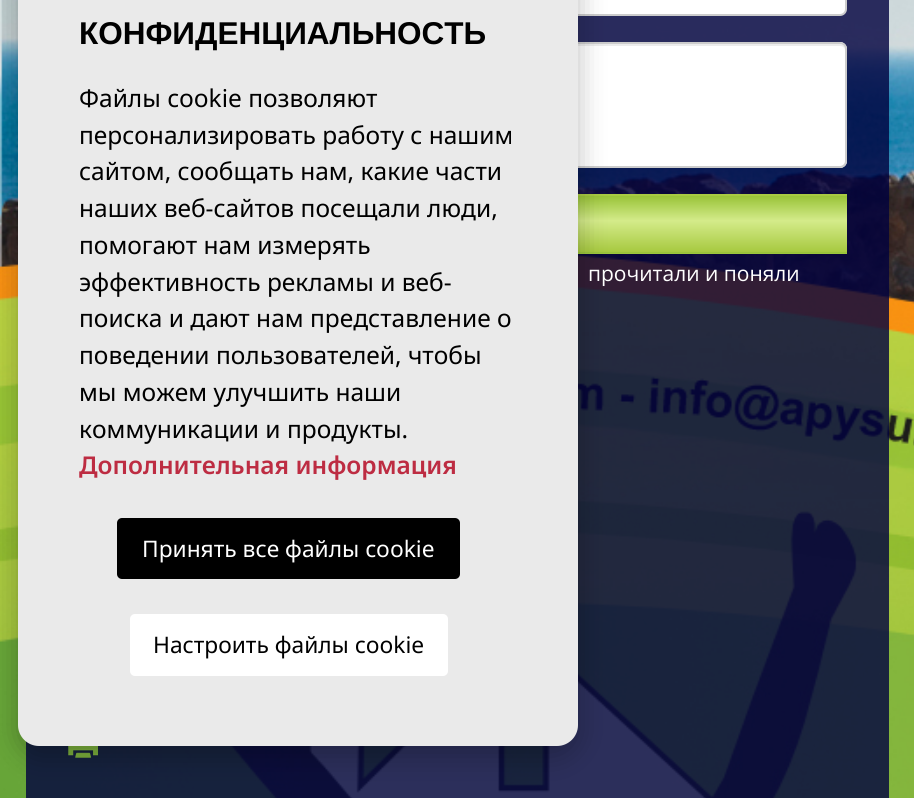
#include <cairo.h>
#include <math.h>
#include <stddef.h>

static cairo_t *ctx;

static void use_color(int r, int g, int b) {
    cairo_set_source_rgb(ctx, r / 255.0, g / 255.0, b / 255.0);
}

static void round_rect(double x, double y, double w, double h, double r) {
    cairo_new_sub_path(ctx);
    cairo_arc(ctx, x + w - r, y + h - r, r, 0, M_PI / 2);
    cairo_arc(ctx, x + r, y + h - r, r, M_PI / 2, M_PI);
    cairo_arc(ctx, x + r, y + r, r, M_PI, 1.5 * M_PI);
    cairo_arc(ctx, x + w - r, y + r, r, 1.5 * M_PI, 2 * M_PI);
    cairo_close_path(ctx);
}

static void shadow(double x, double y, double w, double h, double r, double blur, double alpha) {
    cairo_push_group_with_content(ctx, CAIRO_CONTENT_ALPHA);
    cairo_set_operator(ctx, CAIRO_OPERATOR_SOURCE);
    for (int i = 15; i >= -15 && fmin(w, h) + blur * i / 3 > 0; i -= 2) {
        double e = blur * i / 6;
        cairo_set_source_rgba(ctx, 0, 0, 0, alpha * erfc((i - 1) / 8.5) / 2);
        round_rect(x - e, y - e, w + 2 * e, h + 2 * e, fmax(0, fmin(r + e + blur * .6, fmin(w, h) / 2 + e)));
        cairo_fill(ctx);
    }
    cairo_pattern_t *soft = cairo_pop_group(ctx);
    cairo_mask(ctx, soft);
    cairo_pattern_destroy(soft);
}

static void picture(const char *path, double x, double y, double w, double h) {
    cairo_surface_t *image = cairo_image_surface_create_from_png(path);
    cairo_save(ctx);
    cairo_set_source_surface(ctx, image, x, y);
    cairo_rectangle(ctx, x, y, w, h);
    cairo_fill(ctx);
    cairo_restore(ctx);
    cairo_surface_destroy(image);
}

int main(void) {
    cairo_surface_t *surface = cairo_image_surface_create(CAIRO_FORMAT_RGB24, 914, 798);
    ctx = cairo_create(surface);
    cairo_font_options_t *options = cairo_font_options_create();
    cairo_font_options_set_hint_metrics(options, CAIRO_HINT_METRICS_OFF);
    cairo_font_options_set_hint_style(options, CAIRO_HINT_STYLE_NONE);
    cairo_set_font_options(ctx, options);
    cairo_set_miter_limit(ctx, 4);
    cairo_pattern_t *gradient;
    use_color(255, 255, 255);
    cairo_paint(ctx);
    picture("img1.png", 0, 0, 914, 798);
    use_color(255, 255, 255);
    round_rect(69, -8, 777, 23, 6);
    cairo_fill_preserve(ctx);
    use_color(204, 204, 204);
    cairo_stroke(ctx);
    use_color(255, 255, 255);
    round_rect(68, 42, 779, 126, 7);
    cairo_fill(ctx);
    use_color(236, 236, 236);
    cairo_new_path(ctx);
    cairo_move_to(ctx, 75, 46);
    cairo_line_to(ctx, 840, 46);
    cairo_curve_to(ctx, 843, 46, 845, 48, 845, 51);
    cairo_curve_to(ctx, 845, 48, 844, 44, 840, 44);
    cairo_line_to(ctx, 75, 44);
    cairo_curve_to(ctx, 71, 44, 70, 48, 70, 51);
    cairo_curve_to(ctx, 70, 48, 72, 46, 75, 46);
    cairo_close_path(ctx);
    cairo_fill(ctx);
    round_rect(69, 43, 777, 124, 6);
    use_color(204, 204, 204);
    cairo_stroke(ctx);
    gradient = cairo_pattern_create_linear(458, 140, 458, 196);
    cairo_pattern_add_color_stop_rgba(gradient, 0, 0.6, 0.765, 0.22, 1);
    cairo_pattern_add_color_stop_rgba(gradient, 0.44, 0.831, 0.922, 0.541, 1);
    cairo_pattern_add_color_stop_rgba(gradient, 1, 0.655, 0.788, 0.251, 1);
    cairo_set_source(ctx, gradient);
    cairo_pattern_destroy(gradient);
    cairo_rectangle(ctx, 578, 194, 269, 2);
    cairo_fill(ctx);
    gradient = cairo_pattern_create_linear(458, 196, 458, 252);
    cairo_pattern_add_color_stop_rgba(gradient, 0, 0.6, 0.765, 0.22, 1);
    cairo_pattern_add_color_stop_rgba(gradient, 0.44, 0.831, 0.922, 0.541, 1);
    cairo_pattern_add_color_stop_rgba(gradient, 1, 0.655, 0.788, 0.251, 1);
    cairo_set_source(ctx, gradient);
    cairo_pattern_destroy(gradient);
    cairo_rectangle(ctx, 578, 196, 269, 56);
    cairo_fill(ctx);
    gradient = cairo_pattern_create_linear(458, 252, 458, 308);
    cairo_pattern_add_color_stop_rgba(gradient, 0, 0.6, 0.765, 0.22, 1);
    cairo_pattern_add_color_stop_rgba(gradient, 0.44, 0.831, 0.922, 0.541, 1);
    cairo_pattern_add_color_stop_rgba(gradient, 1, 0.655, 0.788, 0.251, 1);
    cairo_set_source(ctx, gradient);
    cairo_pattern_destroy(gradient);
    cairo_rectangle(ctx, 578, 252, 269, 2);
    cairo_fill(ctx);
    picture("img2.png", 68, 746, 30, 12);
    use_color(0, 0, 0);
    shadow(18, -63, 560, 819, 21, 14, 0.25);
    use_color(234, 234, 234);
    round_rect(18, -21, 560, 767, 21);
    cairo_fill(ctx);
    cairo_select_font_face(ctx, "Liberation Sans", CAIRO_FONT_SLANT_NORMAL, CAIRO_FONT_WEIGHT_BOLD);
    cairo_set_font_size(ctx, 31.5);
    use_color(0, 0, 0);
    cairo_move_to(ctx, 79, 44);
    cairo_show_text(ctx, "КОНФИДЕНЦИАЛЬНОСТЬ");
    cairo_select_font_face(ctx, "Noto Sans", CAIRO_FONT_SLANT_NORMAL, CAIRO_FONT_WEIGHT_NORMAL);
    cairo_set_font_size(ctx, 24.5);
    cairo_move_to(ctx, 79, 107);
    cairo_show_text(ctx, "Файлы cookie позволяют");
    cairo_move_to(ctx, 79, 144);
    cairo_show_text(ctx, "персонализировать работу с нашим");
    cairo_move_to(ctx, 79, 180);
    cairo_show_text(ctx, "сайтом, сообщать нам, какие части");
    cairo_move_to(ctx, 79, 217);
    cairo_show_text(ctx, "наших веб-сайтов посещали люди,");
    cairo_move_to(ctx, 79, 254);
    cairo_show_text(ctx, "помогают нам измерять");
    cairo_move_to(ctx, 79, 291);
    cairo_show_text(ctx, "эффективность рекламы и веб-");
    cairo_move_to(ctx, 79, 327);
    cairo_show_text(ctx, "поиска и дают нам представление о");
    cairo_move_to(ctx, 79, 364);
    cairo_show_text(ctx, "поведении пользователей, чтобы");
    cairo_move_to(ctx, 79, 401);
    cairo_show_text(ctx, "мы можем улучшить наши");
    cairo_move_to(ctx, 79, 438);
    cairo_show_text(ctx, "коммуникации и продукты.");
    cairo_select_font_face(ctx, "Noto Sans SemiBold", CAIRO_FONT_SLANT_NORMAL, CAIRO_FONT_WEIGHT_NORMAL);
    use_color(189, 44, 66);
    cairo_move_to(ctx, 79, 474);
    cairo_show_text(ctx, "Дополнительная информация");
    use_color(0, 0, 0);
    round_rect(117, 518, 343, 61, 5);
    cairo_fill(ctx);
    cairo_select_font_face(ctx, "Noto Sans", CAIRO_FONT_SLANT_NORMAL, CAIRO_FONT_WEIGHT_NORMAL);
    cairo_set_font_size(ctx, 22.75);
    use_color(255, 255, 255);
    cairo_move_to(ctx, 142, 557);
    cairo_show_text(ctx, "Принять все файлы cookie");
    round_rect(130, 614, 318, 62, 5);
    cairo_fill(ctx);
    use_color(0, 0, 0);
    cairo_move_to(ctx, 153, 653);
    cairo_show_text(ctx, "Настроить файлы cookie");
    cairo_select_font_face(ctx, "Open Sans", CAIRO_FONT_SLANT_NORMAL, CAIRO_FONT_WEIGHT_NORMAL);
    cairo_set_font_size(ctx, 21);
    use_color(255, 255, 255);
    cairo_move_to(ctx, 588, 281);
    cairo_show_text(ctx, "прочитали и поняли");
    cairo_surface_write_to_png(surface, "result.png");
    cairo_font_options_destroy(options);
    cairo_destroy(ctx);
    cairo_surface_destroy(surface);
    return 0;
}
